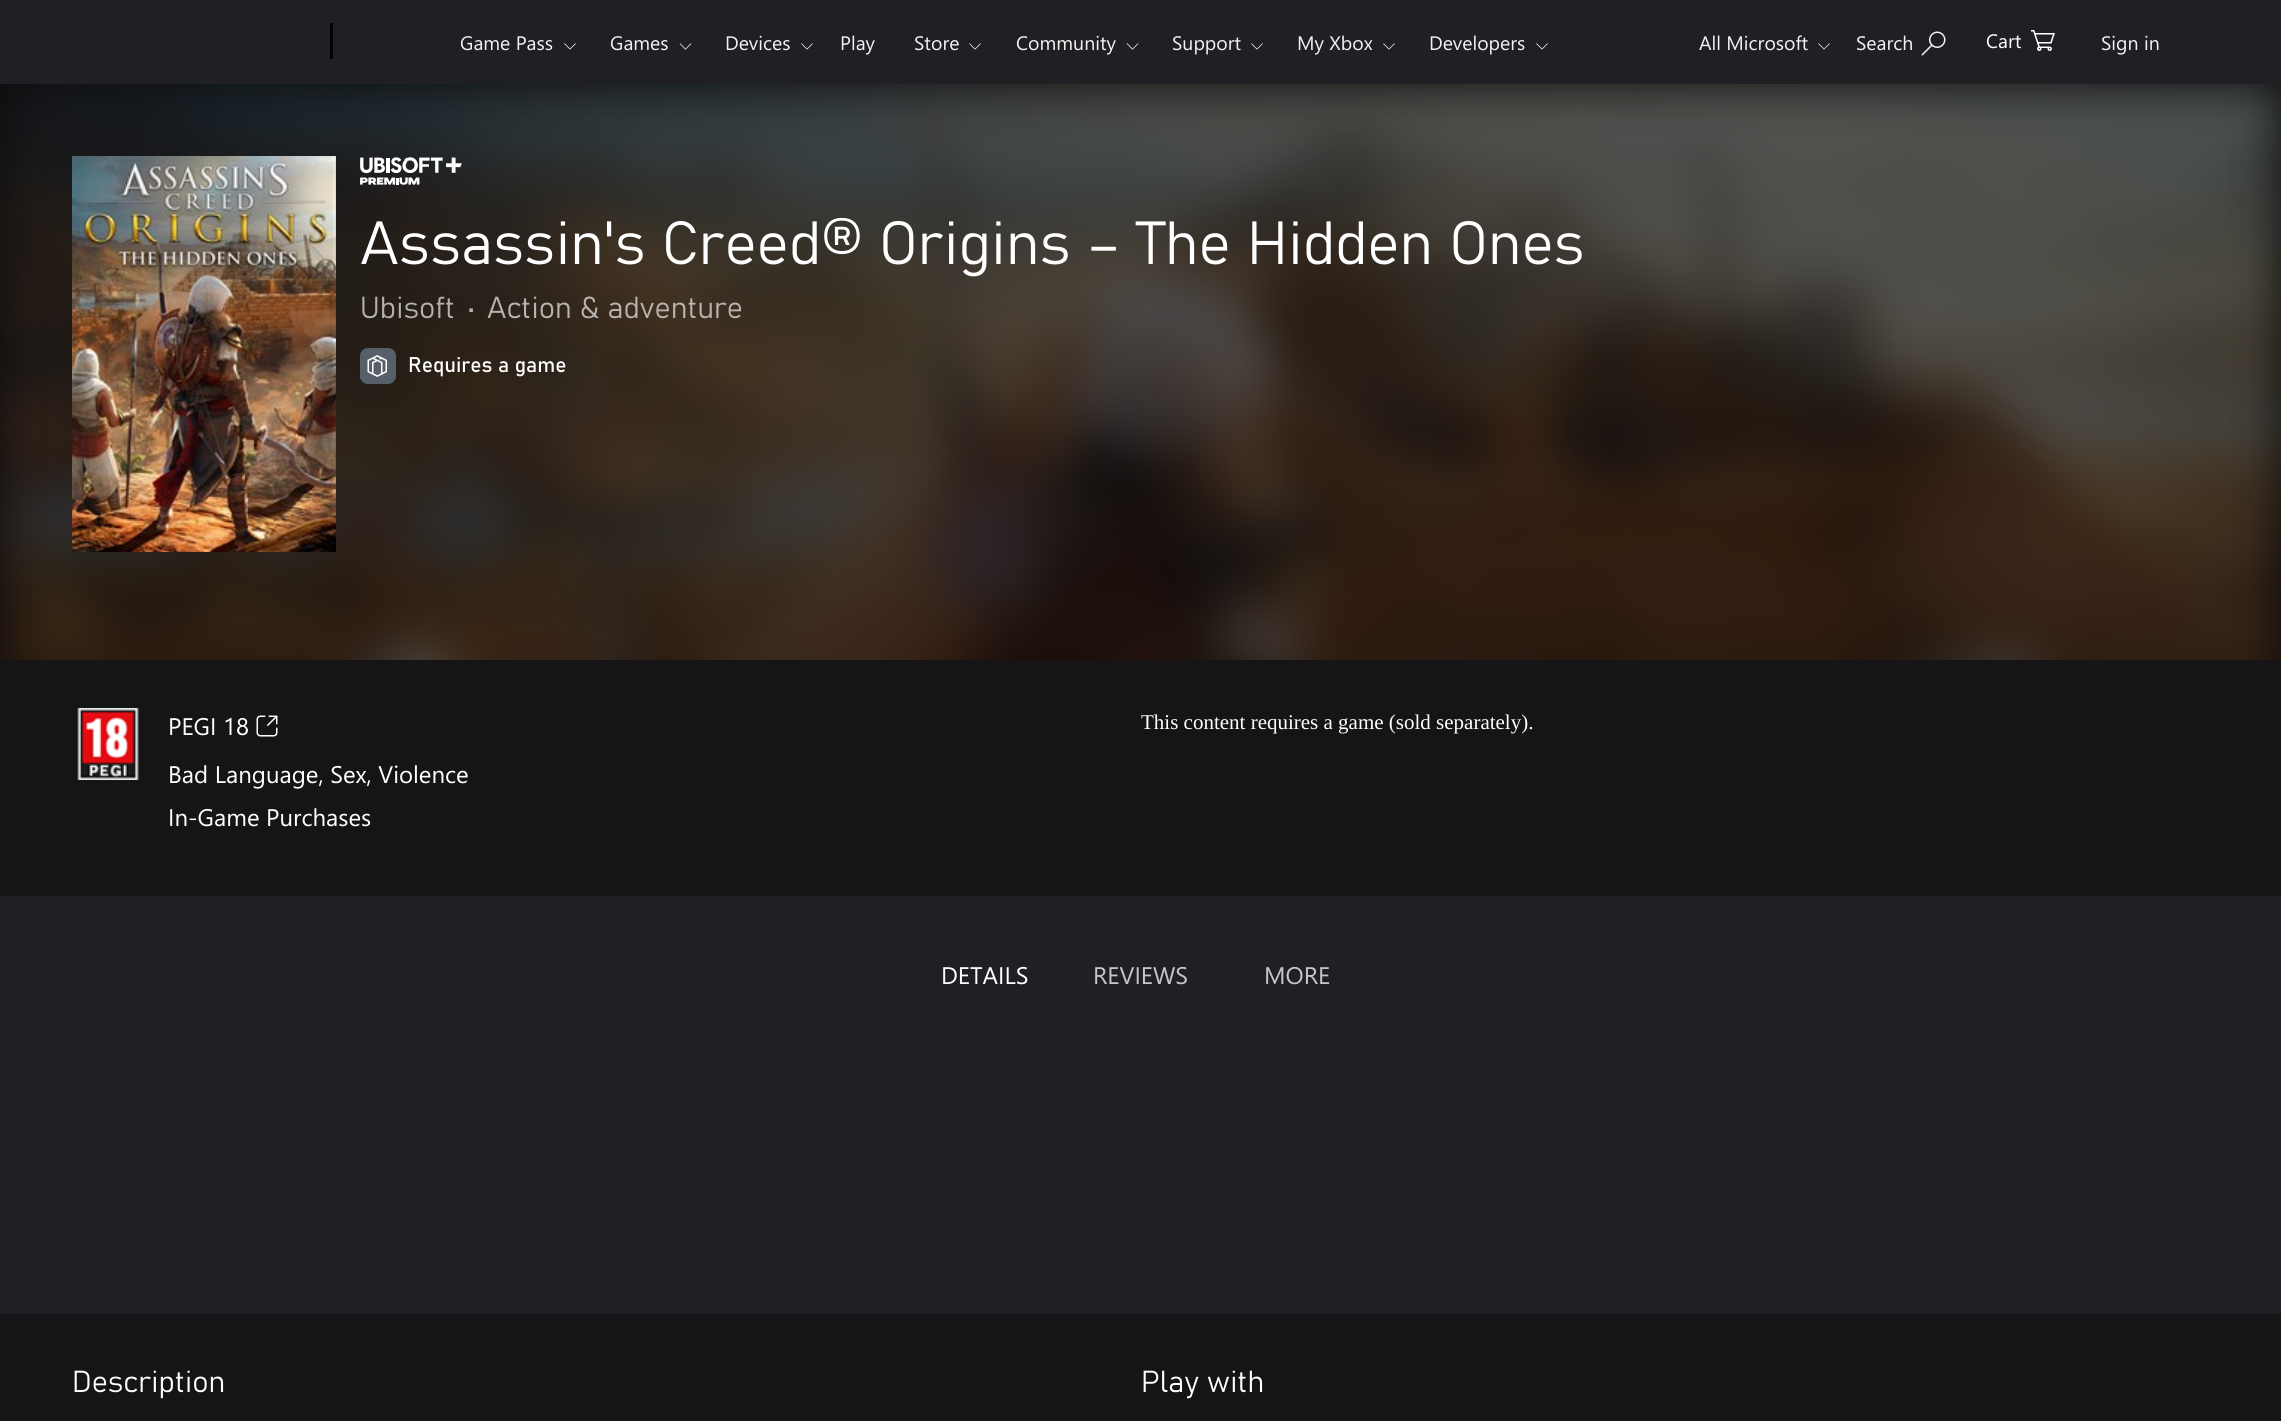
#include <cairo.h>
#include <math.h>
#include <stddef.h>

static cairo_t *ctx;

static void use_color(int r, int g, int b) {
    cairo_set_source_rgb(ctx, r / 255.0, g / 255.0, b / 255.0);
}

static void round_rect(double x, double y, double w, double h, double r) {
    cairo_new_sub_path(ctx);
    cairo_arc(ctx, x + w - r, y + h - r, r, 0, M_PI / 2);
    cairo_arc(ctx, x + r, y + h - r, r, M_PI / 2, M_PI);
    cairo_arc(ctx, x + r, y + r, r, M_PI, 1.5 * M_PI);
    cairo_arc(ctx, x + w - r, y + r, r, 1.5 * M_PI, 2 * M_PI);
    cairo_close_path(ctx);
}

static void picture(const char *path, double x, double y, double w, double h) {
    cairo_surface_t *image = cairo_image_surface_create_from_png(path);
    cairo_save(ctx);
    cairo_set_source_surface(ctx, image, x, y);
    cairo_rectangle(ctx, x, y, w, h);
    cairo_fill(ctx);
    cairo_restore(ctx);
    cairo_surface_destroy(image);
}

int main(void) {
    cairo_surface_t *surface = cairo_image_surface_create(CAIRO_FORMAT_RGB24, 2281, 1421);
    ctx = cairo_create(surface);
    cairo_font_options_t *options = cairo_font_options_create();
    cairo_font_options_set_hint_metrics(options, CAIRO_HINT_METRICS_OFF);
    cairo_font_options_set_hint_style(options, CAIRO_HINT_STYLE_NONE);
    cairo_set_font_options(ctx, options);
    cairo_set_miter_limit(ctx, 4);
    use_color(32, 31, 36);
    cairo_paint(ctx);
    use_color(12, 11, 13);
    cairo_rectangle(ctx, 0, 84, 2281, 576);
    cairo_fill(ctx);
    use_color(0, 0, 0);
    cairo_rectangle(ctx, 330, 23, 3, 36);
    cairo_fill(ctx);
    cairo_select_font_face(ctx, "Segoe UI", CAIRO_FONT_SLANT_NORMAL, CAIRO_FONT_WEIGHT_NORMAL);
    cairo_set_font_size(ctx, 19.5);
    use_color(242, 242, 242);
    cairo_move_to(ctx, 460, 50);
    cairo_show_text(ctx, "Game Pass");
    picture("img1.png", 564, 43, 12, 7);
    cairo_move_to(ctx, 610, 50);
    cairo_show_text(ctx, "Games");
    picture("img2.png", 679, 43, 13, 7);
    cairo_move_to(ctx, 725, 50);
    cairo_show_text(ctx, "Devices");
    picture("img1.png", 801, 43, 12, 7);
    cairo_move_to(ctx, 840, 50);
    cairo_show_text(ctx, "Play");
    cairo_move_to(ctx, 914, 50);
    cairo_show_text(ctx, "Store");
    picture("img1.png", 969, 43, 12, 7);
    cairo_move_to(ctx, 1016, 50);
    cairo_show_text(ctx, "Community");
    picture("img2.png", 1126, 43, 13, 7);
    cairo_move_to(ctx, 1172, 50);
    cairo_show_text(ctx, "Support");
    picture("img1.png", 1251, 43, 12, 7);
    cairo_move_to(ctx, 1297, 50);
    cairo_show_text(ctx, "My Xbox");
    picture("img1.png", 1383, 43, 12, 7);
    cairo_move_to(ctx, 1429, 50);
    cairo_show_text(ctx, "Developers");
    picture("img1.png", 1536, 43, 12, 7);
    cairo_move_to(ctx, 1699, 50);
    cairo_show_text(ctx, "All Microsoft");
    picture("img1.png", 1818, 43, 12, 7);
    cairo_move_to(ctx, 1856, 50);
    cairo_show_text(ctx, "Search");
    picture("img3.png", 1921, 31, 25, 25);
    use_color(255, 255, 255);
    cairo_move_to(ctx, 1986, 48);
    cairo_show_text(ctx, "Cart");
    picture("img4.png", 2031, 30, 24, 21);
    use_color(242, 242, 242);
    cairo_move_to(ctx, 2101, 50);
    cairo_show_text(ctx, "Sign in");
    picture("img5.png", 0, 84, 2281, 576);
    picture("img6.png", 72, 156, 264, 396);
    picture("img7.png", 360, 157, 102, 28);
    cairo_select_font_face(ctx, "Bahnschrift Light", CAIRO_FONT_SLANT_NORMAL, CAIRO_FONT_WEIGHT_NORMAL);
    cairo_set_font_size(ctx, 60);
    use_color(255, 255, 255);
    cairo_move_to(ctx, 360, 264);
    cairo_show_text(ctx, "Assassin's Creed® Origins – The Hidden Ones");
    cairo_set_font_size(ctx, 30);
    use_color(179, 176, 174);
    cairo_move_to(ctx, 360, 318);
    cairo_show_text(ctx, "Ubisoft");
    cairo_move_to(ctx, 467, 318);
    cairo_show_text(ctx, "•");
    use_color(185, 180, 176);
    cairo_move_to(ctx, 487, 318);
    cairo_show_text(ctx, "Action & adventure");
    use_color(87, 95, 107);
    round_rect(360, 348, 36, 36, 8);
    cairo_fill(ctx);
    picture("img8.png", 367, 355, 20, 22);
    cairo_select_font_face(ctx, "Bahnschrift", CAIRO_FONT_SLANT_NORMAL, CAIRO_FONT_WEIGHT_NORMAL);
    cairo_set_font_size(ctx, 21);
    use_color(255, 255, 255);
    cairo_move_to(ctx, 408, 372);
    cairo_show_text(ctx, "Requires a game");
    use_color(21, 21, 23);
    cairo_rectangle(ctx, 0, 660, 2281, 236);
    cairo_fill(ctx);
    picture("img9.png", 77, 708, 62, 72);
    cairo_select_font_face(ctx, "Segoe UI", CAIRO_FONT_SLANT_NORMAL, CAIRO_FONT_WEIGHT_NORMAL);
    cairo_set_font_size(ctx, 24);
    use_color(255, 255, 255);
    cairo_move_to(ctx, 168, 735);
    cairo_show_text(ctx, "PEGI 18");
    picture("img10.png", 256, 715, 22, 22);
    cairo_move_to(ctx, 168, 783);
    cairo_show_text(ctx, "Bad Language, Sex, Violence");
    cairo_move_to(ctx, 168, 826);
    cairo_show_text(ctx, "In-Game Purchases");
    cairo_select_font_face(ctx, "Liberation Serif", CAIRO_FONT_SLANT_NORMAL, CAIRO_FONT_WEIGHT_NORMAL);
    cairo_set_font_size(ctx, 21);
    cairo_move_to(ctx, 1141, 729);
    cairo_show_text(ctx, "This content requires a game (sold separately).");
    cairo_select_font_face(ctx, "Segoe UI", CAIRO_FONT_SLANT_NORMAL, CAIRO_FONT_WEIGHT_NORMAL);
    cairo_set_font_size(ctx, 24);
    cairo_move_to(ctx, 941, 984);
    cairo_show_text(ctx, "DETAILS");
    use_color(199, 199, 200);
    cairo_move_to(ctx, 1093, 984);
    cairo_show_text(ctx, "REVIEWS");
    cairo_move_to(ctx, 1264, 984);
    cairo_show_text(ctx, "MORE");
    use_color(21, 21, 23);
    cairo_rectangle(ctx, 0, 1314, 2281, 107);
    cairo_fill(ctx);
    cairo_select_font_face(ctx, "Bahnschrift Light", CAIRO_FONT_SLANT_NORMAL, CAIRO_FONT_WEIGHT_NORMAL);
    cairo_set_font_size(ctx, 30);
    use_color(255, 255, 255);
    cairo_move_to(ctx, 72, 1392);
    cairo_show_text(ctx, "Description");
    cairo_move_to(ctx, 1141, 1392);
    cairo_show_text(ctx, "Play with");
    cairo_surface_write_to_png(surface, "result.png");
    cairo_font_options_destroy(options);
    cairo_destroy(ctx);
    cairo_surface_destroy(surface);
    return 0;
}
